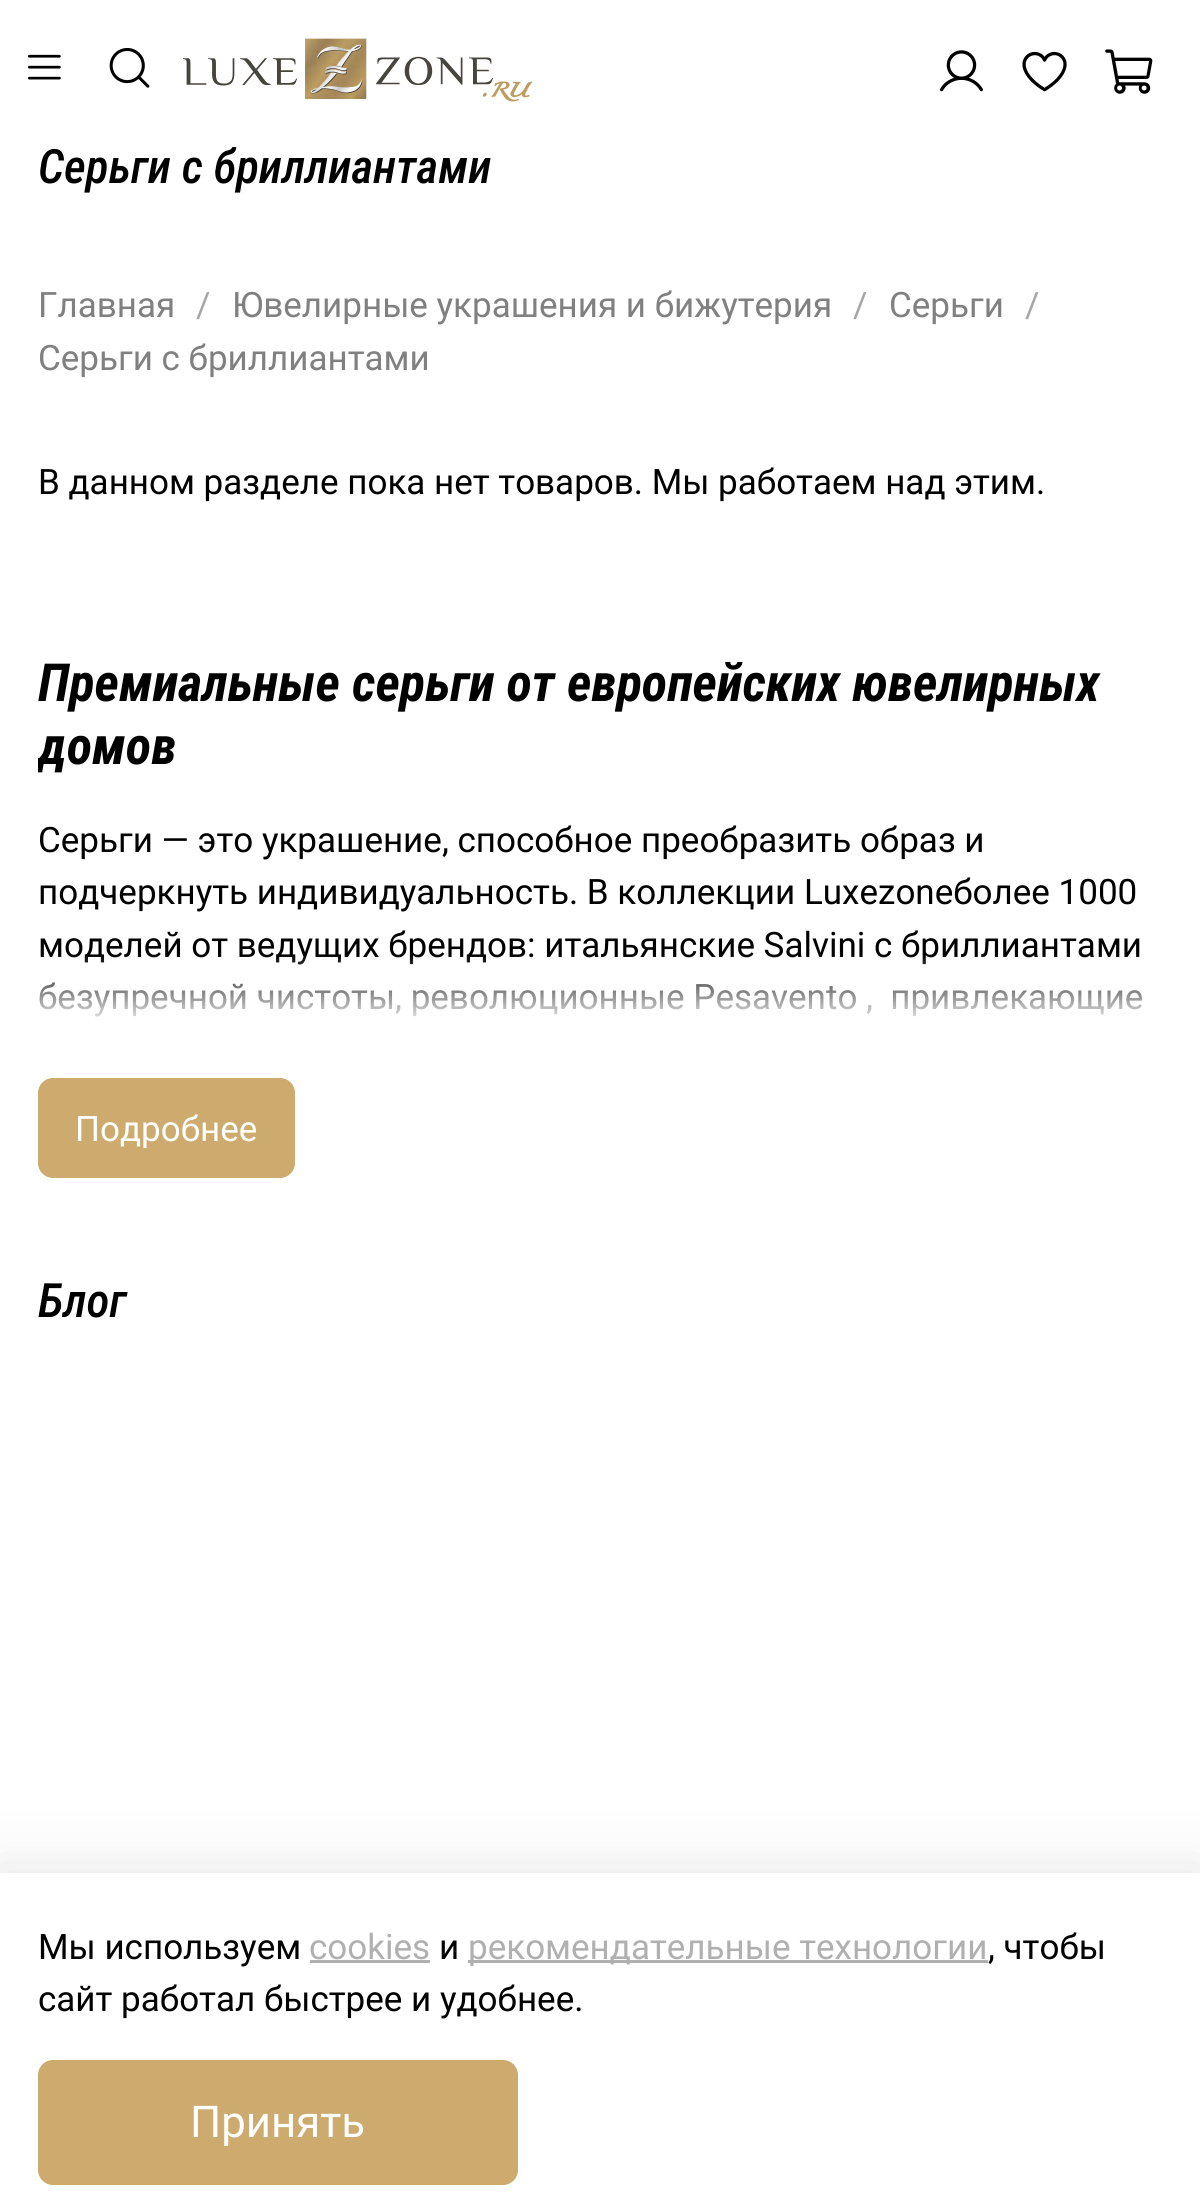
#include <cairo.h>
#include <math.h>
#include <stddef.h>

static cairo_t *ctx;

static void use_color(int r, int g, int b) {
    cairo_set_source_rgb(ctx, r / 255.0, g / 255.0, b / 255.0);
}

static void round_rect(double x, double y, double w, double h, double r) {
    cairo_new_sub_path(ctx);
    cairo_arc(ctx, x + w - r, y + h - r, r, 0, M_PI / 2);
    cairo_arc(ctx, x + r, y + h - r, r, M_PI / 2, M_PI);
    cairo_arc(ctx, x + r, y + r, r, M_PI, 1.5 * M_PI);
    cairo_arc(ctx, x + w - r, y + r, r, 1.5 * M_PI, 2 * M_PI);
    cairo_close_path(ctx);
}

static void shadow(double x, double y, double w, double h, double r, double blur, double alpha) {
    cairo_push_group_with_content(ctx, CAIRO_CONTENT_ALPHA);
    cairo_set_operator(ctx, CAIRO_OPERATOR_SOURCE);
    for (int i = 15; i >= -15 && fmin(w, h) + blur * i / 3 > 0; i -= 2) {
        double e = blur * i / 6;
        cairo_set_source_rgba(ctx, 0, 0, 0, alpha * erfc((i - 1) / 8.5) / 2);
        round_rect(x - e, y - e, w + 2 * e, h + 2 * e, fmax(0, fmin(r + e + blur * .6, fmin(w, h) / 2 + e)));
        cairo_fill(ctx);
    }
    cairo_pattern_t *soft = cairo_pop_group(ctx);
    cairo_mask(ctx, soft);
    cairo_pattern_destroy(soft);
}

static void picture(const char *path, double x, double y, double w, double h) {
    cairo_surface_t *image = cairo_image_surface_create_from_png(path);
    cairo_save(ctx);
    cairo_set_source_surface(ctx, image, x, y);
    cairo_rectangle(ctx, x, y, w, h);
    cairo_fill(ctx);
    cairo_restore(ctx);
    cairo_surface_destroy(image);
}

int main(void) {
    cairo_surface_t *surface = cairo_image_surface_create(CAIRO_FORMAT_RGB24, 1200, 2210);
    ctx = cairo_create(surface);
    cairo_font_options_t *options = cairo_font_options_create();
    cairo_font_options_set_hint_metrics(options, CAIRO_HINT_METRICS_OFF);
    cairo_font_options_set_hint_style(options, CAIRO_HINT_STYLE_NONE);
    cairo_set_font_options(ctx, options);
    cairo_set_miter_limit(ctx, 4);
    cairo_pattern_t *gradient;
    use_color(255, 255, 255);
    cairo_paint(ctx);
    picture("img1.png", 28, 54, 33, 26);
    picture("img2.png", 109, 48, 41, 40);
    picture("img3.png", 183, 38, 350, 64);
    picture("img4.png", 939, 50, 44, 42);
    picture("img5.png", 1022, 51, 45, 41);
    picture("img6.png", 1105, 49, 48, 45);
    cairo_select_font_face(ctx, "Roboto Condensed Medium", CAIRO_FONT_SLANT_ITALIC, CAIRO_FONT_WEIGHT_NORMAL);
    cairo_set_font_size(ctx, 47.25);
    use_color(0, 0, 0);
    cairo_move_to(ctx, 38, 183);
    cairo_show_text(ctx, "Серьги с бриллиантами");
    cairo_select_font_face(ctx, "Roboto", CAIRO_FONT_SLANT_NORMAL, CAIRO_FONT_WEIGHT_NORMAL);
    cairo_set_font_size(ctx, 35);
    use_color(128, 128, 128);
    cairo_move_to(ctx, 38, 317);
    cairo_show_text(ctx, "Главная");
    use_color(166, 166, 166);
    cairo_move_to(ctx, 196, 317);
    cairo_show_text(ctx, "/");
    use_color(128, 128, 128);
    cairo_move_to(ctx, 232, 317);
    cairo_show_text(ctx, "Ювелирные украшения и бижутерия");
    use_color(166, 166, 166);
    cairo_move_to(ctx, 853, 317);
    cairo_show_text(ctx, "/");
    use_color(128, 128, 128);
    cairo_move_to(ctx, 889, 317);
    cairo_show_text(ctx, "Серьги");
    use_color(166, 166, 166);
    cairo_move_to(ctx, 1025, 317);
    cairo_show_text(ctx, "/");
    use_color(128, 128, 128);
    cairo_move_to(ctx, 38, 370);
    cairo_show_text(ctx, "Серьги с бриллиантами");
    use_color(0, 0, 0);
    cairo_move_to(ctx, 38, 494);
    cairo_show_text(ctx, "В данном разделе пока нет товаров. Мы работаем над этим.");
    cairo_select_font_face(ctx, "Roboto Condensed", CAIRO_FONT_SLANT_ITALIC, CAIRO_FONT_WEIGHT_BOLD);
    cairo_set_font_size(ctx, 52.5);
    cairo_move_to(ctx, 38, 701);
    cairo_show_text(ctx, "Премиальные серьги от европейских ювелирных");
    cairo_save(ctx);
    cairo_rectangle(ctx, 38, 653, 1125, 375);
    cairo_clip(ctx);
    cairo_move_to(ctx, 38, 764);
    cairo_show_text(ctx, "домов");
    cairo_restore(ctx);
    cairo_select_font_face(ctx, "Roboto", CAIRO_FONT_SLANT_NORMAL, CAIRO_FONT_WEIGHT_NORMAL);
    cairo_set_font_size(ctx, 35);
    cairo_move_to(ctx, 38, 852);
    cairo_show_text(ctx, "Серьги — это украшение, способное преобразить образ и");
    cairo_move_to(ctx, 38, 904);
    cairo_show_text(ctx, "подчеркнуть индивидуальность. В коллекции Luxezoneболее 1000");
    cairo_move_to(ctx, 38, 957);
    cairo_show_text(ctx, "моделей от ведущих брендов: итальянские Salvini с бриллиантами");
    cairo_move_to(ctx, 38, 1009);
    cairo_show_text(ctx, "безупречной чистоты, революционные Pesavento ,  привлекающие");
    gradient = cairo_pattern_create_linear(600, 953, 600, 1028);
    cairo_pattern_add_color_stop_rgba(gradient, 0, 1, 1, 1, 0);
    cairo_pattern_add_color_stop_rgba(gradient, 1, 1, 1, 1, 1);
    cairo_set_source(ctx, gradient);
    cairo_pattern_destroy(gradient);
    cairo_rectangle(ctx, 39, 955, 1103, 62);
    cairo_fill(ctx);
    use_color(205, 170, 109);
    round_rect(38, 1078, 257, 100, 15);
    cairo_fill(ctx);
    use_color(255, 255, 255);
    cairo_move_to(ctx, 75, 1141);
    cairo_show_text(ctx, "Подробнее");
    cairo_select_font_face(ctx, "Roboto Condensed Medium", CAIRO_FONT_SLANT_ITALIC, CAIRO_FONT_WEIGHT_NORMAL);
    cairo_set_font_size(ctx, 47.25);
    use_color(0, 0, 0);
    cairo_move_to(ctx, 38, 1317);
    cairo_show_text(ctx, "Блог");
    use_color(0, 0, 0);
    shadow(-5, 1865, 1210, 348, 0, 29, 0.09);
    use_color(255, 255, 255);
    cairo_rectangle(ctx, 0, 1873, 1200, 337);
    cairo_fill(ctx);
    cairo_select_font_face(ctx, "Roboto", CAIRO_FONT_SLANT_NORMAL, CAIRO_FONT_WEIGHT_NORMAL);
    cairo_set_font_size(ctx, 35);
    use_color(0, 0, 0);
    cairo_move_to(ctx, 38, 1959);
    cairo_show_text(ctx, "Мы используем");
    use_color(176, 176, 177);
    cairo_move_to(ctx, 309, 1959);
    cairo_show_text(ctx, "cookies");
    cairo_rectangle(ctx, 310, 1960, 120, 3);
    cairo_fill(ctx);
    use_color(0, 0, 0);
    cairo_move_to(ctx, 439, 1959);
    cairo_show_text(ctx, "и");
    use_color(176, 176, 177);
    cairo_rectangle(ctx, 468, 1960, 520, 3);
    cairo_fill(ctx);
    cairo_move_to(ctx, 468, 1959);
    cairo_show_text(ctx, "рекомендательные технологии");
    use_color(0, 0, 0);
    cairo_move_to(ctx, 988, 1959);
    cairo_show_text(ctx, ", чтобы");
    cairo_move_to(ctx, 38, 2011);
    cairo_show_text(ctx, "сайт работал быстрее и удобнее.");
    use_color(205, 170, 109);
    round_rect(38, 2060, 480, 125, 15);
    cairo_fill(ctx);
    cairo_set_font_size(ctx, 43.75);
    use_color(255, 255, 255);
    cairo_move_to(ctx, 190, 2137);
    cairo_show_text(ctx, "Принять");
    cairo_surface_write_to_png(surface, "result.png");
    cairo_font_options_destroy(options);
    cairo_destroy(ctx);
    cairo_surface_destroy(surface);
    return 0;
}
